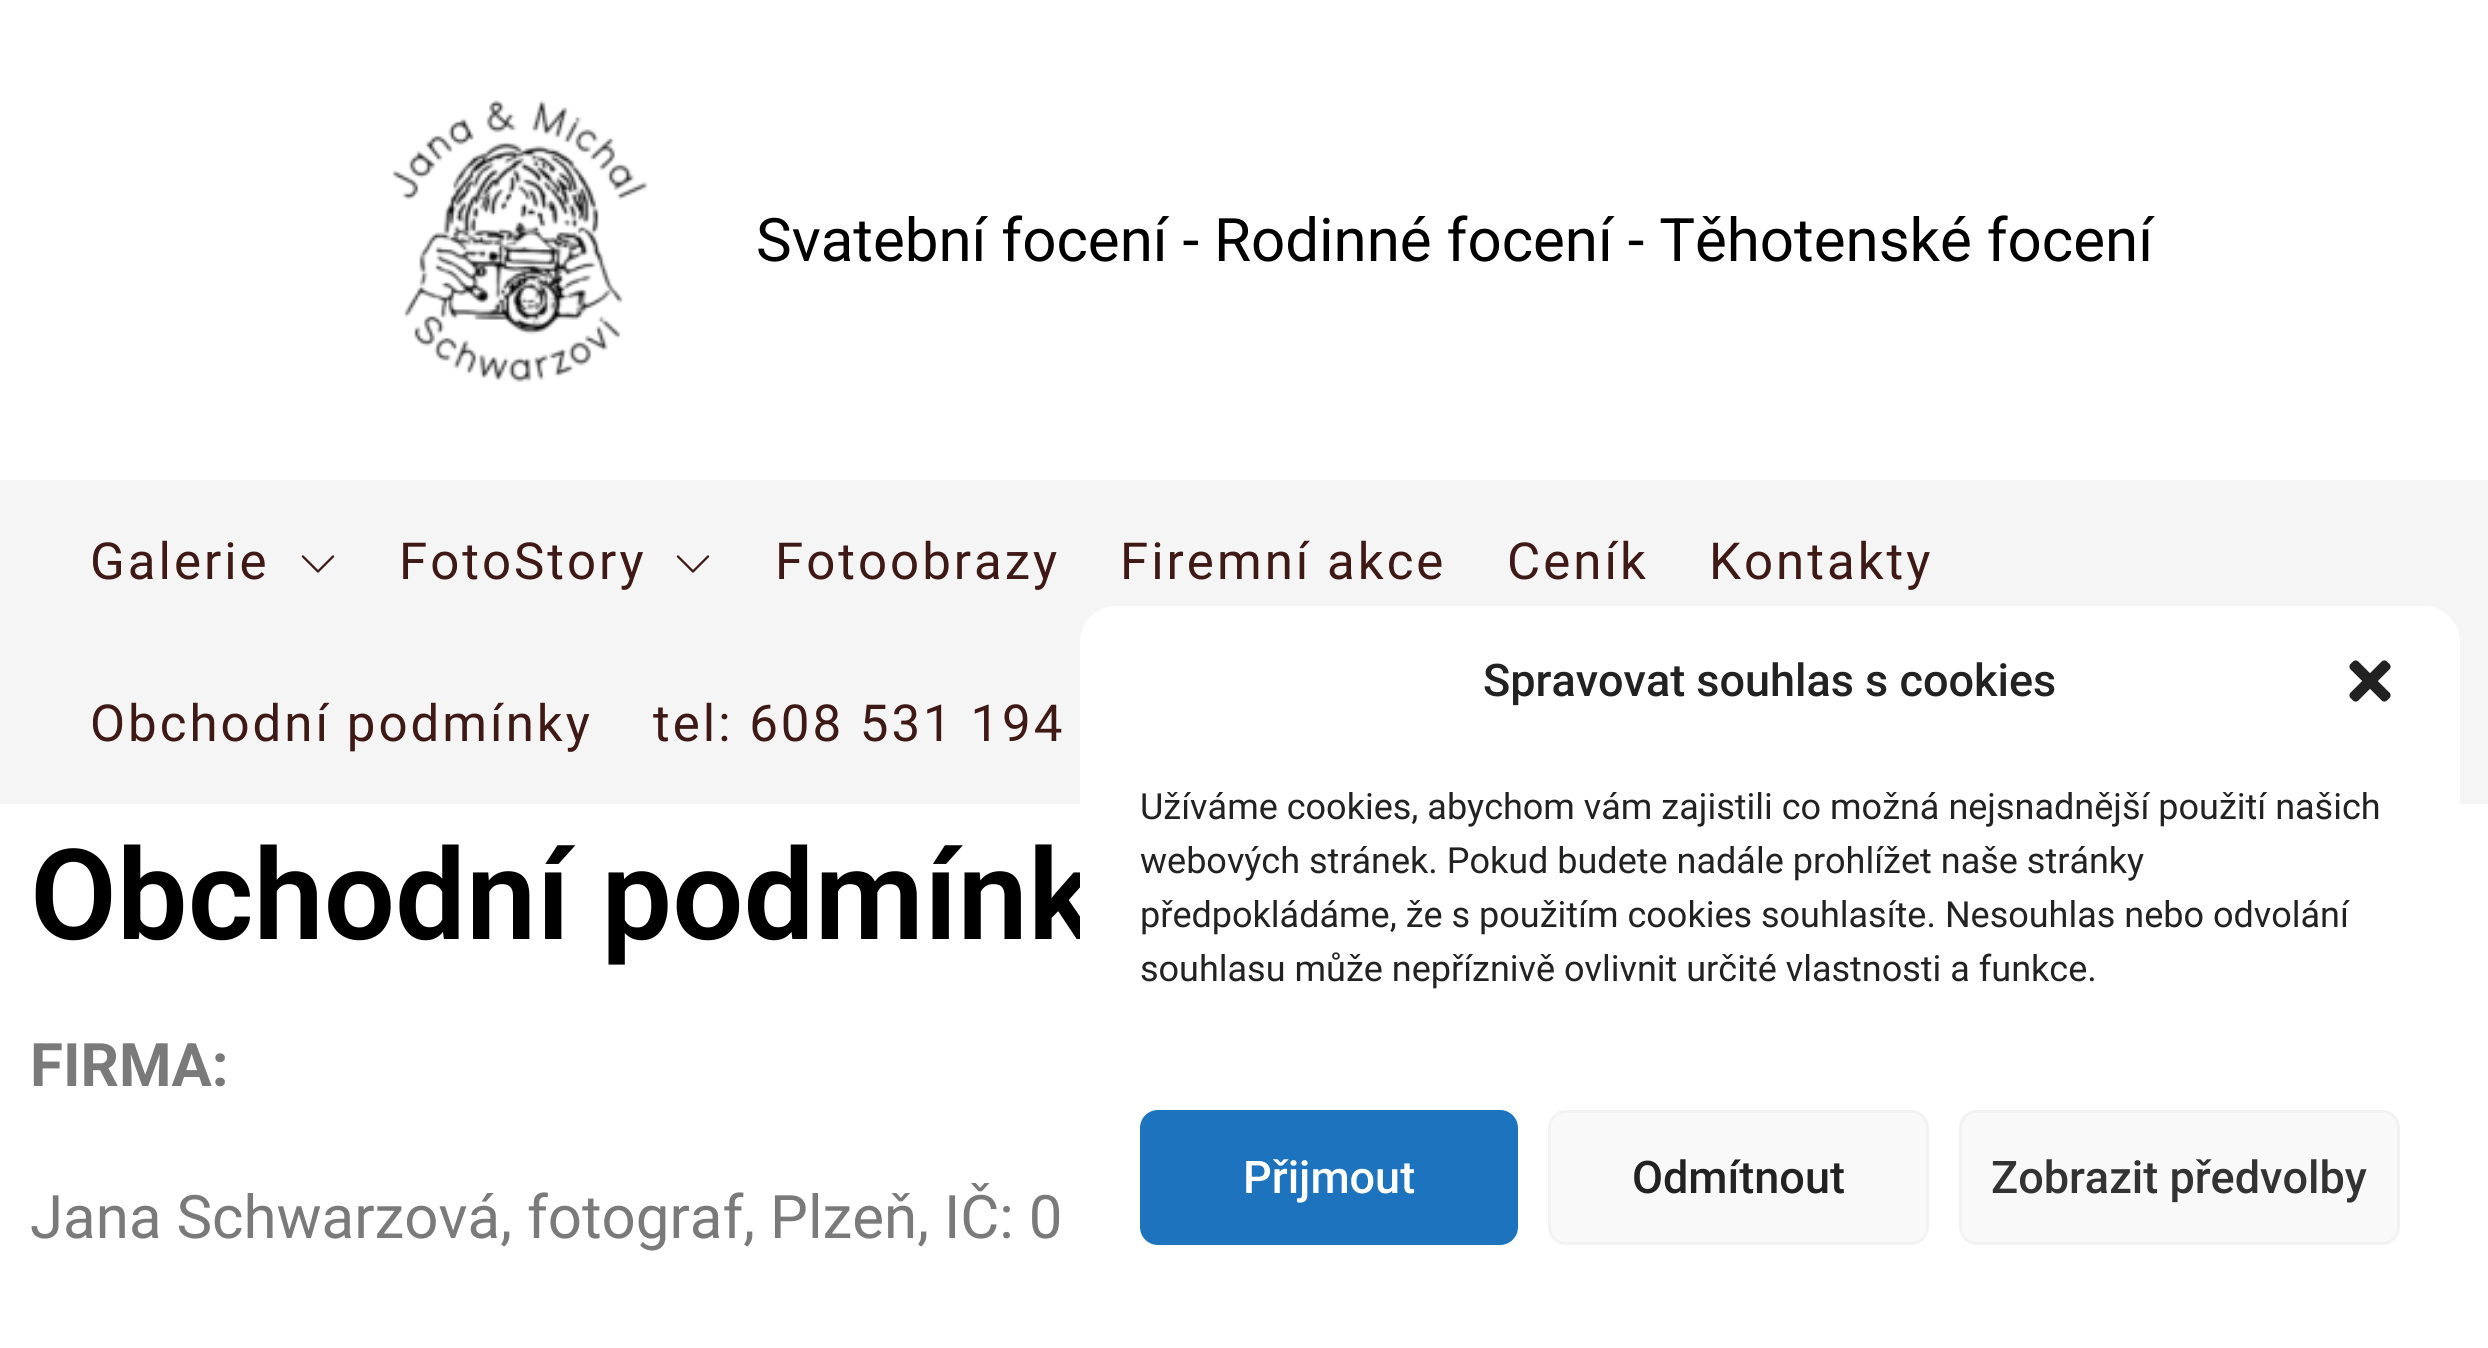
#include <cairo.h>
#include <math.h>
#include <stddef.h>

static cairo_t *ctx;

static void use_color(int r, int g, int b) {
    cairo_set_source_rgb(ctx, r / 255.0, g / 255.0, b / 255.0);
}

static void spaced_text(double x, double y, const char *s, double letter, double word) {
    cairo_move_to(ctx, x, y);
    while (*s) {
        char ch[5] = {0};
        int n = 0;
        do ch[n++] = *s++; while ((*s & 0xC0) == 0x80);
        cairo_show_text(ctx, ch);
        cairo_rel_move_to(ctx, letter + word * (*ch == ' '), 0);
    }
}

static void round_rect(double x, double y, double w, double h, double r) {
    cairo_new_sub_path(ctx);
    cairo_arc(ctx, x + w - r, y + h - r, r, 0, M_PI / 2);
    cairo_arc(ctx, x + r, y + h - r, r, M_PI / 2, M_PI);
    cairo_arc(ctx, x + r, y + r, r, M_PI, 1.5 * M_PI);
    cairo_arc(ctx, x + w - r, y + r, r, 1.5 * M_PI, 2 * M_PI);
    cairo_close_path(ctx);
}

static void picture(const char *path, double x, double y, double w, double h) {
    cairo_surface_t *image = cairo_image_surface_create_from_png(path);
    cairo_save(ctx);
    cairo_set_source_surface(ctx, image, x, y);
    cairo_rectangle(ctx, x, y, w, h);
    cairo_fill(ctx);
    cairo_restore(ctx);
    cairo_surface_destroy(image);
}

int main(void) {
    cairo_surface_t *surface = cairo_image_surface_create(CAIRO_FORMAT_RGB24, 2488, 1348);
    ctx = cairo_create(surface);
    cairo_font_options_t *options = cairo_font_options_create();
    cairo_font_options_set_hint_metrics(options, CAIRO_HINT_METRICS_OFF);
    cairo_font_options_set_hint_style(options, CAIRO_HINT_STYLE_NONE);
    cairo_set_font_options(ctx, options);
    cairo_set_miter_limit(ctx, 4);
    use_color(255, 255, 255);
    cairo_paint(ctx);
    picture("img1.png", 392, 100, 256, 283);
    cairo_select_font_face(ctx, "Roboto", CAIRO_FONT_SLANT_NORMAL, CAIRO_FONT_WEIGHT_NORMAL);
    cairo_set_font_size(ctx, 60);
    use_color(0, 0, 0);
    cairo_move_to(ctx, 756, 261);
    cairo_show_text(ctx, "Svatební focení - Rodinné focení - Těhotenské focení");
    use_color(245, 245, 245);
    cairo_rectangle(ctx, 0, 480, 2488, 324);
    cairo_fill(ctx);
    cairo_set_font_size(ctx, 51);
    use_color(62, 25, 22);
    spaced_text(90, 579, "Galerie", 3, 0);
    picture("img2.png", 301, 555, 34, 18);
    spaced_text(399, 579, "FotoStory", 3, 0);
    picture("img2.png", 676, 555, 34, 18);
    spaced_text(775, 579, "Fotoobrazy", 3, 0);
    spaced_text(1120, 579, "Firemní akce", 3, 0);
    spaced_text(1507, 579, "Ceník", 3, 0);
    spaced_text(1709, 579, "Kontakty", 3, 0);
    spaced_text(90, 741, "Obchodní podmínky", 3, 0);
    spaced_text(653, 741, "tel: 608 531 194", 3, 0);
    cairo_select_font_face(ctx, "Roboto SemiBold", CAIRO_FONT_SLANT_NORMAL, CAIRO_FONT_WEIGHT_NORMAL);
    cairo_set_font_size(ctx, 126);
    use_color(0, 0, 0);
    cairo_move_to(ctx, 30, 939);
    cairo_show_text(ctx, "Obchodní podmínk");
    cairo_select_font_face(ctx, "Roboto", CAIRO_FONT_SLANT_NORMAL, CAIRO_FONT_WEIGHT_BOLD);
    cairo_set_font_size(ctx, 60);
    use_color(122, 122, 122);
    cairo_move_to(ctx, 30, 1086);
    cairo_show_text(ctx, "FIRMA:");
    cairo_select_font_face(ctx, "Roboto", CAIRO_FONT_SLANT_NORMAL, CAIRO_FONT_WEIGHT_NORMAL);
    cairo_move_to(ctx, 30, 1238);
    cairo_show_text(ctx, "Jana Schwarzová, fotograf, Plzeň, IČ: 0");
    use_color(255, 255, 255);
    round_rect(1080, 606, 1380, 714, 36);
    cairo_fill(ctx);
    cairo_select_font_face(ctx, "Roboto Medium", CAIRO_FONT_SLANT_NORMAL, CAIRO_FONT_WEIGHT_NORMAL);
    cairo_set_font_size(ctx, 45);
    use_color(34, 34, 34);
    cairo_move_to(ctx, 1483, 696);
    cairo_show_text(ctx, "Spravovat souhlas s cookies");
    picture("img3.png", 2349, 660, 42, 42);
    cairo_select_font_face(ctx, "Roboto", CAIRO_FONT_SLANT_NORMAL, CAIRO_FONT_WEIGHT_NORMAL);
    cairo_set_font_size(ctx, 36);
    cairo_move_to(ctx, 1140, 819);
    cairo_show_text(ctx, "Užíváme cookies, abychom vám zajistili co možná nejsnadnější použití našich");
    cairo_move_to(ctx, 1140, 873);
    cairo_show_text(ctx, "webových stránek. Pokud budete nadále prohlížet naše stránky");
    cairo_move_to(ctx, 1140, 927);
    cairo_show_text(ctx, "předpokládáme, že s použitím cookies souhlasíte. Nesouhlas nebo odvolání");
    cairo_move_to(ctx, 1140, 981);
    cairo_show_text(ctx, "souhlasu může nepříznivě ovlivnit určité vlastnosti a funkce.");
    use_color(30, 115, 190);
    round_rect(1141.5, 1111.5, 375, 132, 16.5);
    cairo_fill_preserve(ctx);
    cairo_set_line_width(ctx, 3);
    cairo_stroke(ctx);
    cairo_select_font_face(ctx, "Roboto Medium", CAIRO_FONT_SLANT_NORMAL, CAIRO_FONT_WEIGHT_NORMAL);
    cairo_set_font_size(ctx, 45);
    use_color(255, 255, 255);
    cairo_move_to(ctx, 1243, 1193);
    cairo_show_text(ctx, "Přijmout");
    use_color(249, 249, 249);
    round_rect(1549.5, 1111.5, 378, 132, 16.5);
    cairo_fill_preserve(ctx);
    use_color(242, 242, 242);
    cairo_stroke(ctx);
    use_color(34, 34, 34);
    cairo_move_to(ctx, 1632, 1193);
    cairo_show_text(ctx, "Odmítnout");
    use_color(249, 249, 249);
    round_rect(1960.5, 1111.5, 438, 132, 16.5);
    cairo_fill_preserve(ctx);
    use_color(242, 242, 242);
    cairo_stroke(ctx);
    use_color(51, 51, 51);
    cairo_move_to(ctx, 1991, 1193);
    cairo_show_text(ctx, "Zobrazit předvolby");
    cairo_surface_write_to_png(surface, "result.png");
    cairo_font_options_destroy(options);
    cairo_destroy(ctx);
    cairo_surface_destroy(surface);
    return 0;
}
